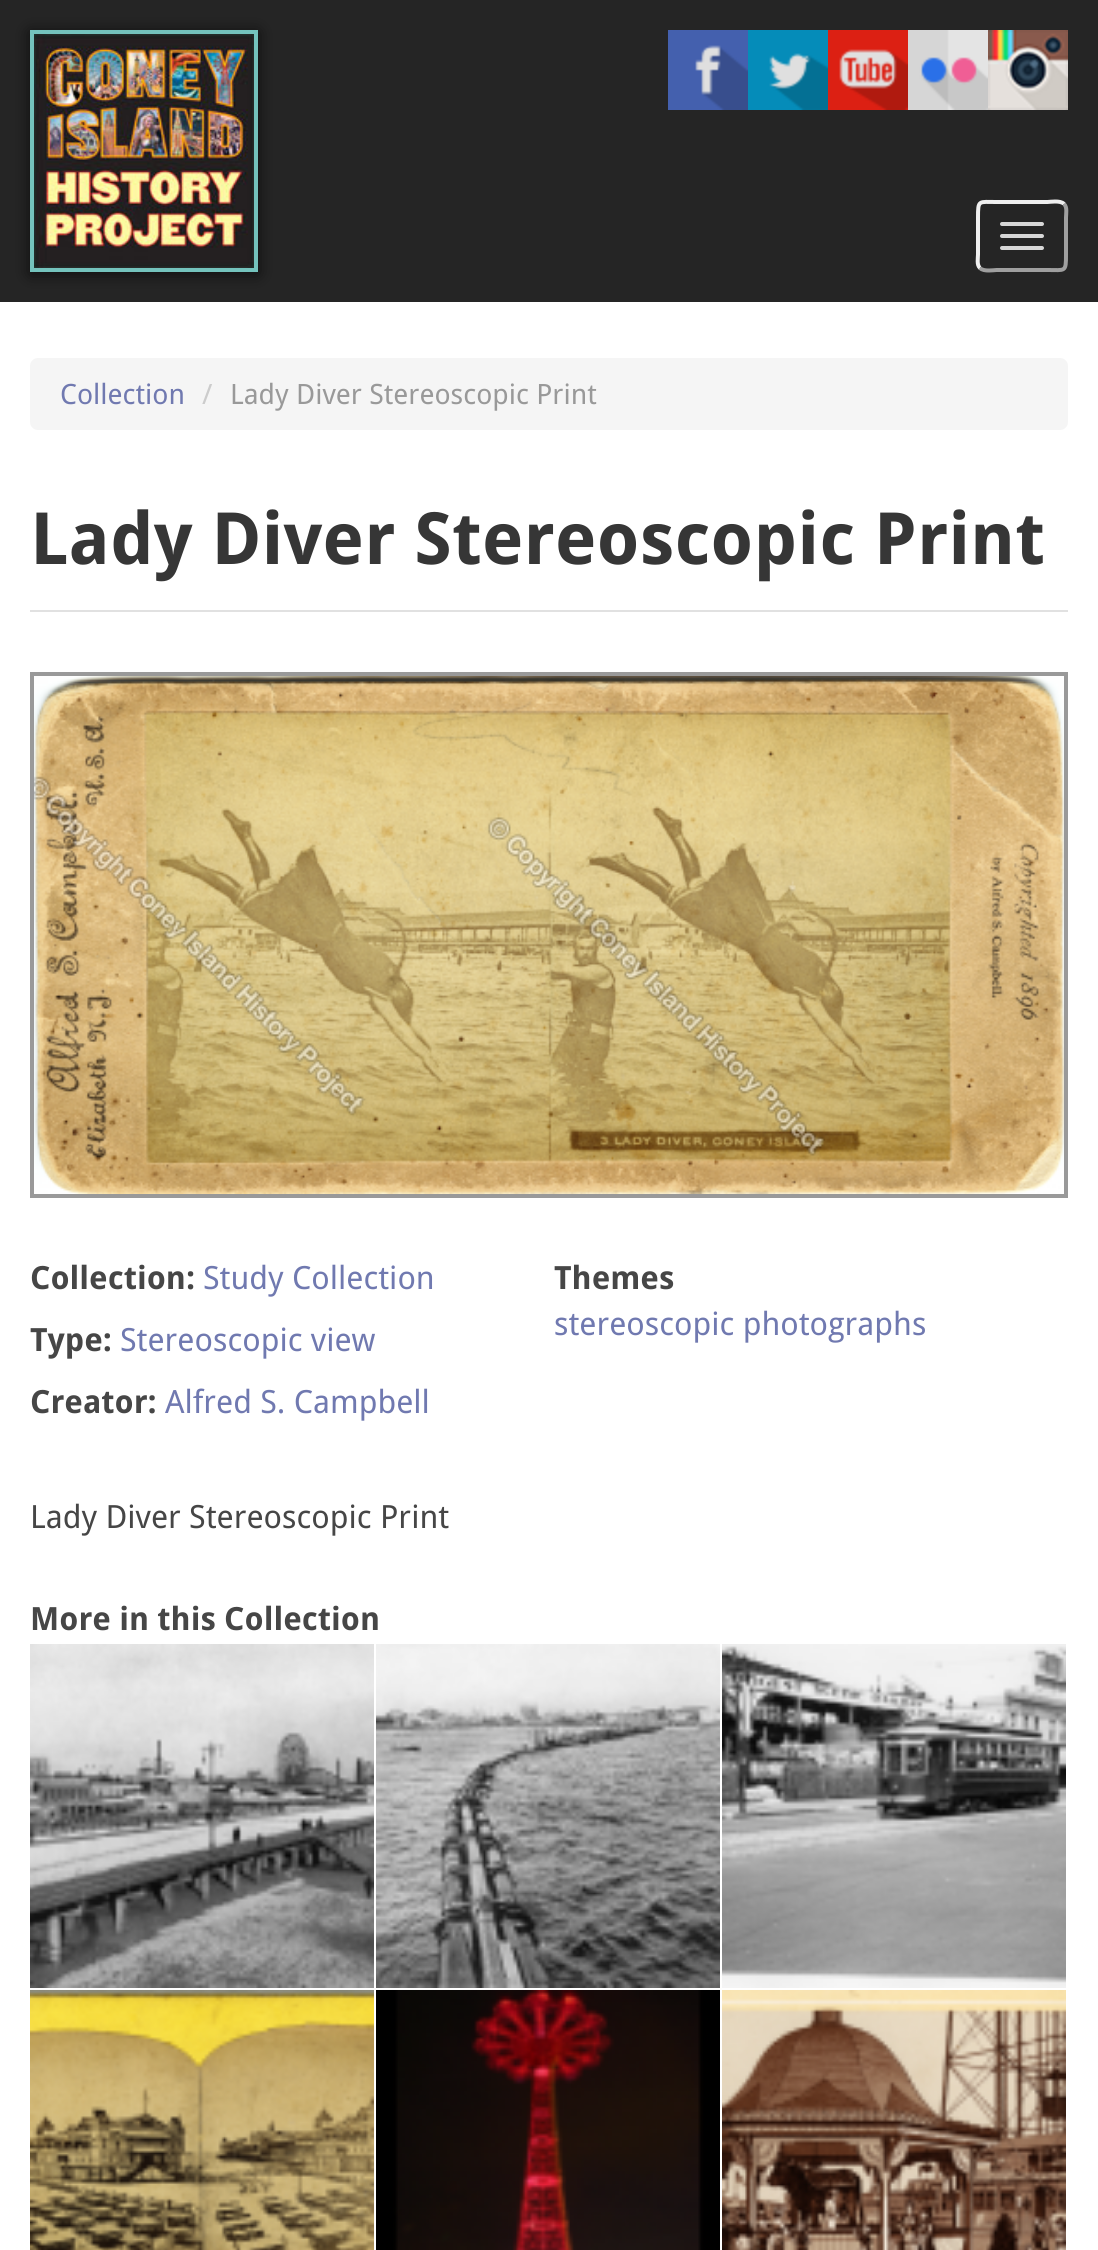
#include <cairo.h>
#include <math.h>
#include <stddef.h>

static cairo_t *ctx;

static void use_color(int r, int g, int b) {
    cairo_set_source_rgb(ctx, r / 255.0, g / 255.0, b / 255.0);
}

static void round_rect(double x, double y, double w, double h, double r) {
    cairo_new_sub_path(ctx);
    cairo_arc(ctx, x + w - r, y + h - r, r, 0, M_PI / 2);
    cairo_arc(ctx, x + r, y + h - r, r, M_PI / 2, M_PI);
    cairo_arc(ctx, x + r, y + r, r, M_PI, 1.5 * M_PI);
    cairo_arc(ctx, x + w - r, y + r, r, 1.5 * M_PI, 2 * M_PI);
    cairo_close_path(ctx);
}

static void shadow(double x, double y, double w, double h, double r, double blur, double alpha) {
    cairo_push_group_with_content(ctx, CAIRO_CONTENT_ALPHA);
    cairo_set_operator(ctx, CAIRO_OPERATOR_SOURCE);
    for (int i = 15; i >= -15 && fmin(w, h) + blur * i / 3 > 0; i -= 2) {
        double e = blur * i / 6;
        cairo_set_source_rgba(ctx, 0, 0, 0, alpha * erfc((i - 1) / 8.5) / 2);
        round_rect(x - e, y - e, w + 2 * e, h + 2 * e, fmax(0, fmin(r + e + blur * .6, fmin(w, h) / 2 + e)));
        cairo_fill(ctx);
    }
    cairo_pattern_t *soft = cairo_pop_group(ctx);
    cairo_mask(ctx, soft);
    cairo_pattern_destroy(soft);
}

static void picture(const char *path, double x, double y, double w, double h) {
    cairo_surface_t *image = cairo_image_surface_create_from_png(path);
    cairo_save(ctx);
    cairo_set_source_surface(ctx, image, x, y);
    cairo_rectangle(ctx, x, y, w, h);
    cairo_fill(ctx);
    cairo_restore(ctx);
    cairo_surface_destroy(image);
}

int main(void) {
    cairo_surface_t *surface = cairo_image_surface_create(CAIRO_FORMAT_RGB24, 1098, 2250);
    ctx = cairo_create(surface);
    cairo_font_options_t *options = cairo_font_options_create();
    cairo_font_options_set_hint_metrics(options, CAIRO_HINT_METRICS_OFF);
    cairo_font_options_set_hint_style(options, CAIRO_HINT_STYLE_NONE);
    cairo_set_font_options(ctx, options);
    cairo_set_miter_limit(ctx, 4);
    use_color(255, 255, 255);
    cairo_paint(ctx);
    use_color(37, 37, 37);
    cairo_rectangle(ctx, 0, 0, 1098, 302);
    cairo_fill(ctx);
    use_color(0, 0, 0);
    shadow(30, 32, 228, 242, 0, 8, 0.66);
    cairo_rectangle(ctx, 32, 32, 224, 238);
    use_color(116, 195, 189);
    cairo_set_line_width(ctx, 4);
    cairo_stroke(ctx);
    picture("img1.png", 34, 34, 220, 234);
    picture("img2.png", 668, 30, 80, 80);
    picture("img3.png", 748, 30, 80, 80);
    picture("img4.png", 828, 30, 80, 80);
    picture("img5.png", 908, 30, 80, 80);
    picture("img6.png", 988, 30, 80, 80);
    cairo_new_path(ctx);
    cairo_move_to(ctx, 1064, 204);
    cairo_curve_to(ctx, 1067.5, 207, 1066, 214, 1066, 217.5);
    cairo_line_to(ctx, 1066, 254.5);
    cairo_curve_to(ctx, 1066, 272.5, 1065.5, 270, 1047.5, 270);
    cairo_line_to(ctx, 996.5, 270);
    cairo_curve_to(ctx, 994.5, 270, 983.5, 272, 980, 268);
    use_color(159, 159, 159);
    cairo_stroke(ctx);
    cairo_new_path(ctx);
    cairo_move_to(ctx, 980, 268);
    cairo_curve_to(ctx, 976.5, 265, 978, 258, 978, 254.5);
    cairo_line_to(ctx, 978, 217.5);
    cairo_curve_to(ctx, 978, 199.5, 978.5, 202, 996.5, 202);
    cairo_line_to(ctx, 1047.5, 202);
    cairo_curve_to(ctx, 1049.5, 202, 1060.5, 200, 1064, 204);
    use_color(239, 239, 239);
    cairo_stroke(ctx);
    use_color(215, 215, 215);
    round_rect(1000, 222, 44, 4, 2);
    cairo_fill(ctx);
    round_rect(1000, 234, 44, 4, 2);
    cairo_fill(ctx);
    round_rect(1000, 246, 44, 4, 2);
    cairo_fill(ctx);
    use_color(245, 245, 245);
    round_rect(30, 358, 1038, 72, 8);
    cairo_fill(ctx);
    cairo_select_font_face(ctx, "Droid Sans", CAIRO_FONT_SLANT_NORMAL, CAIRO_FONT_WEIGHT_NORMAL);
    cairo_set_font_size(ctx, 28);
    use_color(112, 121, 176);
    cairo_move_to(ctx, 60, 404);
    cairo_show_text(ctx, "Collection");
    use_color(204, 204, 204);
    cairo_move_to(ctx, 202, 404);
    cairo_show_text(ctx, "/");
    use_color(153, 153, 153);
    cairo_move_to(ctx, 230, 404);
    cairo_show_text(ctx, "Lady Diver Stereoscopic Print");
    use_color(225, 225, 225);
    cairo_rectangle(ctx, 30, 610, 1038, 2);
    cairo_fill(ctx);
    cairo_select_font_face(ctx, "Droid Sans", CAIRO_FONT_SLANT_NORMAL, CAIRO_FONT_WEIGHT_BOLD);
    cairo_set_font_size(ctx, 72);
    use_color(54, 54, 54);
    cairo_move_to(ctx, 30, 564);
    cairo_show_text(ctx, "Lady Diver Stereoscopic Print");
    cairo_rectangle(ctx, 32, 674, 1034, 522);
    use_color(153, 153, 153);
    cairo_stroke(ctx);
    picture("img7.png", 34, 676, 1030, 518);
    cairo_set_font_size(ctx, 32);
    use_color(70, 70, 70);
    cairo_move_to(ctx, 30, 1289);
    cairo_show_text(ctx, "Collection:");
    cairo_select_font_face(ctx, "Droid Sans", CAIRO_FONT_SLANT_NORMAL, CAIRO_FONT_WEIGHT_NORMAL);
    use_color(112, 121, 176);
    cairo_move_to(ctx, 203, 1289);
    cairo_show_text(ctx, "Study Collection");
    cairo_select_font_face(ctx, "Droid Sans", CAIRO_FONT_SLANT_NORMAL, CAIRO_FONT_WEIGHT_BOLD);
    use_color(70, 70, 70);
    cairo_move_to(ctx, 30, 1351);
    cairo_show_text(ctx, "Type:");
    cairo_select_font_face(ctx, "Droid Sans", CAIRO_FONT_SLANT_NORMAL, CAIRO_FONT_WEIGHT_NORMAL);
    use_color(112, 121, 176);
    cairo_move_to(ctx, 120, 1351);
    cairo_show_text(ctx, "Stereoscopic view");
    cairo_select_font_face(ctx, "Droid Sans", CAIRO_FONT_SLANT_NORMAL, CAIRO_FONT_WEIGHT_BOLD);
    use_color(70, 70, 70);
    cairo_move_to(ctx, 30, 1413);
    cairo_show_text(ctx, "Creator:");
    cairo_select_font_face(ctx, "Droid Sans", CAIRO_FONT_SLANT_NORMAL, CAIRO_FONT_WEIGHT_NORMAL);
    use_color(112, 121, 176);
    cairo_move_to(ctx, 165, 1413);
    cairo_show_text(ctx, "Alfred S. Campbell");
    cairo_select_font_face(ctx, "Droid Sans", CAIRO_FONT_SLANT_NORMAL, CAIRO_FONT_WEIGHT_BOLD);
    use_color(70, 70, 70);
    cairo_move_to(ctx, 554, 1289);
    cairo_show_text(ctx, "Themes");
    cairo_select_font_face(ctx, "Droid Sans", CAIRO_FONT_SLANT_NORMAL, CAIRO_FONT_WEIGHT_NORMAL);
    use_color(112, 121, 176);
    cairo_move_to(ctx, 554, 1335);
    cairo_show_text(ctx, "stereoscopic photographs");
    use_color(70, 70, 70);
    cairo_move_to(ctx, 30, 1528);
    cairo_show_text(ctx, "Lady Diver Stereoscopic Print");
    cairo_select_font_face(ctx, "Droid Sans", CAIRO_FONT_SLANT_NORMAL, CAIRO_FONT_WEIGHT_BOLD);
    cairo_move_to(ctx, 30, 1630);
    cairo_show_text(ctx, "More in this Collection");
    picture("img8.png", 30, 1644, 344, 344);
    picture("img9.png", 376, 1644, 344, 344);
    picture("img10.png", 722, 1644, 344, 344);
    picture("img11.png", 30, 1990, 344, 260);
    picture("img12.png", 376, 1990, 344, 260);
    picture("img13.png", 722, 1990, 344, 260);
    cairo_surface_write_to_png(surface, "result.png");
    cairo_font_options_destroy(options);
    cairo_destroy(ctx);
    cairo_surface_destroy(surface);
    return 0;
}
